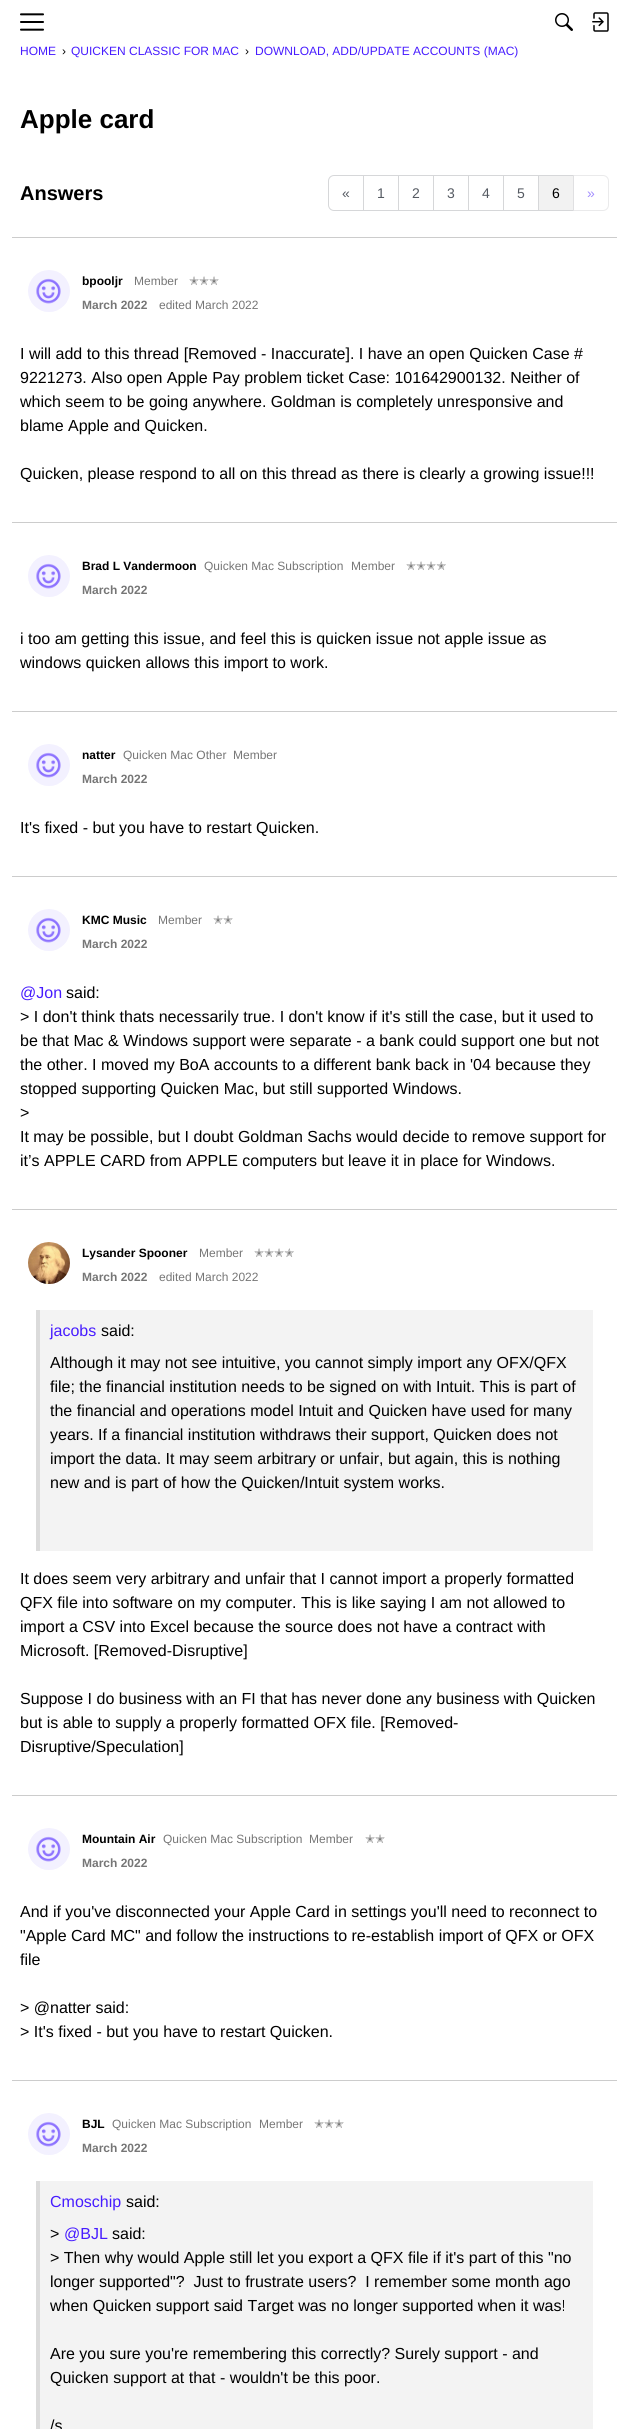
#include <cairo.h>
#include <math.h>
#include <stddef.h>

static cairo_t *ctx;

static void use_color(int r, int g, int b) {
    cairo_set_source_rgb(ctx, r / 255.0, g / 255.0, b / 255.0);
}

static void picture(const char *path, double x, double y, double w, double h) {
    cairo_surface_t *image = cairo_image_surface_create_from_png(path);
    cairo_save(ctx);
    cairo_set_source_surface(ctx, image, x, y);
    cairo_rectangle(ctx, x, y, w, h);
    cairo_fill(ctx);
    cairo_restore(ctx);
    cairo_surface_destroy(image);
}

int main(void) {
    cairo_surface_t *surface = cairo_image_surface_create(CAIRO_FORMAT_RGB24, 629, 2429);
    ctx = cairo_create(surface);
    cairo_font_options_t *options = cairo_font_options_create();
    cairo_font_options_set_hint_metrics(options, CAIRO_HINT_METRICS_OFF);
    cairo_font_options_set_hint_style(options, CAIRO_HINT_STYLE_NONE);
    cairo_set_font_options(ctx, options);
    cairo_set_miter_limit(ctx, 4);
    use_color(255, 255, 255);
    cairo_paint(ctx);
    picture("img1.png", 20, 13, 24, 18);
    picture("img2.png", 555, 13, 18, 18);
    picture("img3.png", 592, 12, 17, 20);
    cairo_select_font_face(ctx, "Liberation Sans", CAIRO_FONT_SLANT_NORMAL, CAIRO_FONT_WEIGHT_NORMAL);
    cairo_set_font_size(ctx, 12);
    use_color(71, 28, 255);
    cairo_move_to(ctx, 20, 55);
    cairo_show_text(ctx, "HOME");
    use_color(0, 0, 0);
    cairo_move_to(ctx, 62, 55);
    cairo_show_text(ctx, "›");
    use_color(71, 28, 255);
    cairo_move_to(ctx, 71, 55);
    cairo_show_text(ctx, "QUICKEN CLASSIC FOR MAC");
    use_color(0, 0, 0);
    cairo_move_to(ctx, 245, 55);
    cairo_show_text(ctx, "›");
    use_color(71, 28, 255);
    cairo_move_to(ctx, 255, 55);
    cairo_show_text(ctx, "DOWNLOAD, ADD/UPDATE ACCOUNTS (MAC)");
    cairo_select_font_face(ctx, "Liberation Sans", CAIRO_FONT_SLANT_NORMAL, CAIRO_FONT_WEIGHT_BOLD);
    cairo_set_font_size(ctx, 26);
    use_color(0, 0, 0);
    cairo_move_to(ctx, 20, 128);
    cairo_show_text(ctx, "Apple card");
    cairo_set_font_size(ctx, 20);
    cairo_move_to(ctx, 20, 200);
    cairo_show_text(ctx, "Answers");
    cairo_new_path(ctx);
    cairo_move_to(ctx, 334, 175.5);
    cairo_line_to(ctx, 363.5, 175.5);
    cairo_line_to(ctx, 363.5, 210.5);
    cairo_line_to(ctx, 334, 210.5);
    cairo_curve_to(ctx, 331, 210.5, 328.5, 208, 328.5, 205);
    cairo_line_to(ctx, 328.5, 181);
    cairo_curve_to(ctx, 328.5, 178, 331, 175.5, 334, 175.5);
    cairo_close_path(ctx);
    use_color(214, 215, 217);
    cairo_set_line_width(ctx, 1);
    cairo_stroke(ctx);
    cairo_select_font_face(ctx, "Liberation Sans", CAIRO_FONT_SLANT_NORMAL, CAIRO_FONT_WEIGHT_NORMAL);
    cairo_set_font_size(ctx, 14);
    use_color(85, 90, 98);
    cairo_move_to(ctx, 342, 198);
    cairo_show_text(ctx, "«");
    cairo_rectangle(ctx, 363.5, 175.5, 35, 35);
    use_color(214, 215, 217);
    cairo_stroke(ctx);
    use_color(85, 90, 98);
    cairo_move_to(ctx, 377, 198);
    cairo_show_text(ctx, "1");
    cairo_rectangle(ctx, 398.5, 175.5, 35, 35);
    use_color(214, 215, 217);
    cairo_stroke(ctx);
    use_color(85, 90, 98);
    cairo_move_to(ctx, 412, 198);
    cairo_show_text(ctx, "2");
    cairo_rectangle(ctx, 433.5, 175.5, 35, 35);
    use_color(214, 215, 217);
    cairo_stroke(ctx);
    use_color(85, 90, 98);
    cairo_move_to(ctx, 447, 198);
    cairo_show_text(ctx, "3");
    cairo_rectangle(ctx, 468.5, 175.5, 35, 35);
    use_color(214, 215, 217);
    cairo_stroke(ctx);
    use_color(85, 90, 98);
    cairo_move_to(ctx, 482, 198);
    cairo_show_text(ctx, "4");
    cairo_rectangle(ctx, 503.5, 175.5, 35, 35);
    use_color(214, 215, 217);
    cairo_stroke(ctx);
    use_color(85, 90, 98);
    cairo_move_to(ctx, 517, 198);
    cairo_show_text(ctx, "5");
    use_color(242, 242, 242);
    cairo_rectangle(ctx, 538.5, 175.5, 35, 35);
    cairo_fill_preserve(ctx);
    use_color(214, 215, 217);
    cairo_stroke(ctx);
    use_color(0, 0, 0);
    cairo_move_to(ctx, 552, 198);
    cairo_show_text(ctx, "6");
    cairo_set_source_rgba(ctx, 1, 1, 1, 0.5);
    cairo_new_path(ctx);
    cairo_move_to(ctx, 573, 175);
    cairo_line_to(ctx, 603, 175);
    cairo_curve_to(ctx, 606.5, 175, 609, 177.5, 609, 181);
    cairo_line_to(ctx, 609, 205);
    cairo_curve_to(ctx, 609, 208.5, 606.5, 211, 603, 211);
    cairo_line_to(ctx, 573, 211);
    cairo_close_path(ctx);
    cairo_fill(ctx);
    cairo_new_path(ctx);
    cairo_move_to(ctx, 573.5, 175.5);
    cairo_line_to(ctx, 603, 175.5);
    cairo_curve_to(ctx, 606, 175.5, 608.5, 178, 608.5, 181);
    cairo_line_to(ctx, 608.5, 205);
    cairo_curve_to(ctx, 608.5, 208, 606, 210.5, 603, 210.5);
    cairo_line_to(ctx, 573.5, 210.5);
    cairo_close_path(ctx);
    cairo_set_source_rgba(ctx, 0.839, 0.843, 0.851, 0.5);
    cairo_stroke(ctx);
    use_color(163, 142, 255);
    cairo_move_to(ctx, 587, 198);
    cairo_show_text(ctx, "»");
    use_color(204, 204, 204);
    cairo_rectangle(ctx, 12, 237, 605, 1);
    cairo_fill(ctx);
    picture("img4.png", 28, 270, 42, 42);
    cairo_select_font_face(ctx, "Liberation Sans", CAIRO_FONT_SLANT_NORMAL, CAIRO_FONT_WEIGHT_BOLD);
    cairo_set_font_size(ctx, 12);
    use_color(0, 0, 0);
    cairo_move_to(ctx, 82, 285);
    cairo_show_text(ctx, "bpooljr");
    cairo_select_font_face(ctx, "Liberation Sans", CAIRO_FONT_SLANT_NORMAL, CAIRO_FONT_WEIGHT_NORMAL);
    use_color(118, 118, 118);
    cairo_move_to(ctx, 134, 285);
    cairo_show_text(ctx, "Member");
    cairo_select_font_face(ctx, "DejaVu Sans", CAIRO_FONT_SLANT_NORMAL, CAIRO_FONT_WEIGHT_NORMAL);
    cairo_move_to(ctx, 189, 285);
    cairo_show_text(ctx, "✭✭✭");
    cairo_select_font_face(ctx, "Liberation Sans", CAIRO_FONT_SLANT_NORMAL, CAIRO_FONT_WEIGHT_BOLD);
    cairo_move_to(ctx, 82, 309);
    cairo_show_text(ctx, "March 2022");
    cairo_select_font_face(ctx, "Liberation Sans", CAIRO_FONT_SLANT_NORMAL, CAIRO_FONT_WEIGHT_NORMAL);
    cairo_move_to(ctx, 159, 309);
    cairo_show_text(ctx, "edited March 2022");
    cairo_set_font_size(ctx, 16);
    use_color(0, 0, 0);
    cairo_move_to(ctx, 20, 359);
    cairo_show_text(ctx, "I will add to this thread [Removed - Inaccurate]. I have an open Quicken Case #");
    cairo_move_to(ctx, 20, 383);
    cairo_show_text(ctx, "9221273. Also open Apple Pay problem ticket Case: 101642900132. Neither of");
    cairo_move_to(ctx, 20, 407);
    cairo_show_text(ctx, "which seem to be going anywhere. Goldman is completely unresponsive and");
    cairo_move_to(ctx, 20, 431);
    cairo_show_text(ctx, "blame Apple and Quicken.");
    cairo_move_to(ctx, 20, 479);
    cairo_show_text(ctx, "Quicken, please respond to all on this thread as there is clearly a growing issue!!!");
    use_color(204, 204, 204);
    cairo_rectangle(ctx, 12, 522, 605, 1);
    cairo_fill(ctx);
    picture("img4.png", 28, 555, 42, 42);
    cairo_select_font_face(ctx, "Liberation Sans", CAIRO_FONT_SLANT_NORMAL, CAIRO_FONT_WEIGHT_BOLD);
    cairo_set_font_size(ctx, 12);
    use_color(0, 0, 0);
    cairo_move_to(ctx, 82, 570);
    cairo_show_text(ctx, "Brad L Vandermoon");
    cairo_select_font_face(ctx, "Liberation Sans", CAIRO_FONT_SLANT_NORMAL, CAIRO_FONT_WEIGHT_NORMAL);
    use_color(118, 118, 118);
    cairo_move_to(ctx, 204, 570);
    cairo_show_text(ctx, "Quicken Mac Subscription");
    cairo_move_to(ctx, 351, 570);
    cairo_show_text(ctx, "Member");
    cairo_select_font_face(ctx, "DejaVu Sans", CAIRO_FONT_SLANT_NORMAL, CAIRO_FONT_WEIGHT_NORMAL);
    cairo_move_to(ctx, 406, 570);
    cairo_show_text(ctx, "✭✭✭✭");
    cairo_select_font_face(ctx, "Liberation Sans", CAIRO_FONT_SLANT_NORMAL, CAIRO_FONT_WEIGHT_BOLD);
    cairo_move_to(ctx, 82, 594);
    cairo_show_text(ctx, "March 2022");
    cairo_select_font_face(ctx, "Liberation Sans", CAIRO_FONT_SLANT_NORMAL, CAIRO_FONT_WEIGHT_NORMAL);
    cairo_set_font_size(ctx, 16);
    use_color(0, 0, 0);
    cairo_move_to(ctx, 20, 644);
    cairo_show_text(ctx, "i too am getting this issue, and feel this is quicken issue not apple issue as");
    cairo_move_to(ctx, 20, 668);
    cairo_show_text(ctx, "windows quicken allows this import to work.");
    use_color(204, 204, 204);
    cairo_rectangle(ctx, 12, 711, 605, 1);
    cairo_fill(ctx);
    picture("img5.png", 28, 744, 42, 42);
    cairo_select_font_face(ctx, "Liberation Sans", CAIRO_FONT_SLANT_NORMAL, CAIRO_FONT_WEIGHT_BOLD);
    cairo_set_font_size(ctx, 12);
    use_color(0, 0, 0);
    cairo_move_to(ctx, 82, 759);
    cairo_show_text(ctx, "natter");
    cairo_select_font_face(ctx, "Liberation Sans", CAIRO_FONT_SLANT_NORMAL, CAIRO_FONT_WEIGHT_NORMAL);
    use_color(118, 118, 118);
    cairo_move_to(ctx, 123, 759);
    cairo_show_text(ctx, "Quicken Mac Other");
    cairo_move_to(ctx, 233, 759);
    cairo_show_text(ctx, "Member");
    cairo_select_font_face(ctx, "Liberation Sans", CAIRO_FONT_SLANT_NORMAL, CAIRO_FONT_WEIGHT_BOLD);
    cairo_move_to(ctx, 82, 783);
    cairo_show_text(ctx, "March 2022");
    cairo_select_font_face(ctx, "Liberation Sans", CAIRO_FONT_SLANT_NORMAL, CAIRO_FONT_WEIGHT_NORMAL);
    cairo_set_font_size(ctx, 16);
    use_color(0, 0, 0);
    cairo_move_to(ctx, 20, 833);
    cairo_show_text(ctx, "It's fixed - but you have to restart Quicken.");
    use_color(204, 204, 204);
    cairo_rectangle(ctx, 12, 876, 605, 1);
    cairo_fill(ctx);
    picture("img4.png", 28, 909, 42, 42);
    cairo_select_font_face(ctx, "Liberation Sans", CAIRO_FONT_SLANT_NORMAL, CAIRO_FONT_WEIGHT_BOLD);
    cairo_set_font_size(ctx, 12);
    use_color(0, 0, 0);
    cairo_move_to(ctx, 82, 924);
    cairo_show_text(ctx, "KMC Music");
    cairo_select_font_face(ctx, "Liberation Sans", CAIRO_FONT_SLANT_NORMAL, CAIRO_FONT_WEIGHT_NORMAL);
    use_color(118, 118, 118);
    cairo_move_to(ctx, 158, 924);
    cairo_show_text(ctx, "Member");
    cairo_select_font_face(ctx, "DejaVu Sans", CAIRO_FONT_SLANT_NORMAL, CAIRO_FONT_WEIGHT_NORMAL);
    cairo_move_to(ctx, 213, 924);
    cairo_show_text(ctx, "✭✭");
    cairo_select_font_face(ctx, "Liberation Sans", CAIRO_FONT_SLANT_NORMAL, CAIRO_FONT_WEIGHT_BOLD);
    cairo_move_to(ctx, 82, 948);
    cairo_show_text(ctx, "March 2022");
    cairo_select_font_face(ctx, "Liberation Sans", CAIRO_FONT_SLANT_NORMAL, CAIRO_FONT_WEIGHT_NORMAL);
    cairo_set_font_size(ctx, 16);
    use_color(71, 28, 255);
    cairo_move_to(ctx, 20, 998);
    cairo_show_text(ctx, "@Jon");
    use_color(0, 0, 0);
    cairo_move_to(ctx, 66, 998);
    cairo_show_text(ctx, "said:");
    cairo_move_to(ctx, 20, 1022);
    cairo_show_text(ctx, "> I don't think thats necessarily true. I don't know if it's still the case, but it used to");
    cairo_move_to(ctx, 20, 1046);
    cairo_show_text(ctx, "be that Mac & Windows support were separate - a bank could support one but not");
    cairo_move_to(ctx, 20, 1070);
    cairo_show_text(ctx, "the other. I moved my BoA accounts to a different bank back in '04 because they");
    cairo_move_to(ctx, 20, 1094);
    cairo_show_text(ctx, "stopped supporting Quicken Mac, but still supported Windows.");
    cairo_move_to(ctx, 20, 1118);
    cairo_show_text(ctx, ">");
    cairo_move_to(ctx, 20, 1142);
    cairo_show_text(ctx, "It may be possible, but I doubt Goldman Sachs would decide to remove support for");
    cairo_move_to(ctx, 20, 1166);
    cairo_show_text(ctx, "it’s APPLE CARD from APPLE computers but leave it in place for Windows.");
    use_color(204, 204, 204);
    cairo_rectangle(ctx, 12, 1209, 605, 1);
    cairo_fill(ctx);
    picture("img6.png", 28, 1242, 42, 42);
    cairo_select_font_face(ctx, "Liberation Sans", CAIRO_FONT_SLANT_NORMAL, CAIRO_FONT_WEIGHT_BOLD);
    cairo_set_font_size(ctx, 12);
    use_color(0, 0, 0);
    cairo_move_to(ctx, 82, 1257);
    cairo_show_text(ctx, "Lysander Spooner");
    cairo_select_font_face(ctx, "Liberation Sans", CAIRO_FONT_SLANT_NORMAL, CAIRO_FONT_WEIGHT_NORMAL);
    use_color(118, 118, 118);
    cairo_move_to(ctx, 199, 1257);
    cairo_show_text(ctx, "Member");
    cairo_select_font_face(ctx, "DejaVu Sans", CAIRO_FONT_SLANT_NORMAL, CAIRO_FONT_WEIGHT_NORMAL);
    cairo_move_to(ctx, 254, 1257);
    cairo_show_text(ctx, "✭✭✭✭");
    cairo_select_font_face(ctx, "Liberation Sans", CAIRO_FONT_SLANT_NORMAL, CAIRO_FONT_WEIGHT_BOLD);
    cairo_move_to(ctx, 82, 1281);
    cairo_show_text(ctx, "March 2022");
    cairo_select_font_face(ctx, "Liberation Sans", CAIRO_FONT_SLANT_NORMAL, CAIRO_FONT_WEIGHT_NORMAL);
    cairo_move_to(ctx, 159, 1281);
    cairo_show_text(ctx, "edited March 2022");
    use_color(243, 243, 243);
    cairo_rectangle(ctx, 40, 1310, 553, 241);
    cairo_fill(ctx);
    use_color(219, 219, 219);
    cairo_rectangle(ctx, 36, 1310, 4, 241);
    cairo_fill(ctx);
    cairo_set_font_size(ctx, 16);
    use_color(71, 28, 255);
    cairo_move_to(ctx, 50, 1336);
    cairo_show_text(ctx, "jacobs");
    use_color(0, 0, 0);
    cairo_move_to(ctx, 101, 1336);
    cairo_show_text(ctx, "said:");
    cairo_move_to(ctx, 50, 1368);
    cairo_show_text(ctx, "Although it may not see intuitive, you cannot simply import any OFX/QFX");
    cairo_move_to(ctx, 50, 1392);
    cairo_show_text(ctx, "file; the financial institution needs to be signed on with Intuit. This is part of");
    cairo_move_to(ctx, 50, 1416);
    cairo_show_text(ctx, "the financial and operations model Intuit and Quicken have used for many");
    cairo_move_to(ctx, 50, 1440);
    cairo_show_text(ctx, "years. If a financial institution withdraws their support, Quicken does not");
    cairo_move_to(ctx, 50, 1464);
    cairo_show_text(ctx, "import the data. It may seem arbitrary or unfair, but again, this is nothing");
    cairo_move_to(ctx, 50, 1488);
    cairo_show_text(ctx, "new and is part of how the Quicken/Intuit system works.");
    cairo_move_to(ctx, 20, 1584);
    cairo_show_text(ctx, "It does seem very arbitrary and unfair that I cannot import a properly formatted");
    cairo_move_to(ctx, 20, 1608);
    cairo_show_text(ctx, "QFX file into software on my computer. This is like saying I am not allowed to");
    cairo_move_to(ctx, 20, 1632);
    cairo_show_text(ctx, "import a CSV into Excel because the source does not have a contract with");
    cairo_move_to(ctx, 20, 1656);
    cairo_show_text(ctx, "Microsoft. [Removed-Disruptive]");
    cairo_move_to(ctx, 20, 1704);
    cairo_show_text(ctx, "Suppose I do business with an FI that has never done any business with Quicken");
    cairo_move_to(ctx, 20, 1728);
    cairo_show_text(ctx, "but is able to supply a properly formatted OFX file. [Removed-");
    cairo_move_to(ctx, 20, 1752);
    cairo_show_text(ctx, "Disruptive/Speculation]");
    use_color(204, 204, 204);
    cairo_rectangle(ctx, 12, 1795, 605, 1);
    cairo_fill(ctx);
    picture("img7.png", 28, 1828, 42, 42);
    cairo_select_font_face(ctx, "Liberation Sans", CAIRO_FONT_SLANT_NORMAL, CAIRO_FONT_WEIGHT_BOLD);
    cairo_set_font_size(ctx, 12);
    use_color(0, 0, 0);
    cairo_move_to(ctx, 82, 1843);
    cairo_show_text(ctx, "Mountain Air");
    cairo_select_font_face(ctx, "Liberation Sans", CAIRO_FONT_SLANT_NORMAL, CAIRO_FONT_WEIGHT_NORMAL);
    use_color(118, 118, 118);
    cairo_move_to(ctx, 163, 1843);
    cairo_show_text(ctx, "Quicken Mac Subscription");
    cairo_move_to(ctx, 309, 1843);
    cairo_show_text(ctx, "Member");
    cairo_select_font_face(ctx, "DejaVu Sans", CAIRO_FONT_SLANT_NORMAL, CAIRO_FONT_WEIGHT_NORMAL);
    cairo_move_to(ctx, 365, 1843);
    cairo_show_text(ctx, "✭✭");
    cairo_select_font_face(ctx, "Liberation Sans", CAIRO_FONT_SLANT_NORMAL, CAIRO_FONT_WEIGHT_BOLD);
    cairo_move_to(ctx, 82, 1867);
    cairo_show_text(ctx, "March 2022");
    cairo_select_font_face(ctx, "Liberation Sans", CAIRO_FONT_SLANT_NORMAL, CAIRO_FONT_WEIGHT_NORMAL);
    cairo_set_font_size(ctx, 16);
    use_color(0, 0, 0);
    cairo_move_to(ctx, 20, 1917);
    cairo_show_text(ctx, "And if you've disconnected your Apple Card in settings you'll need to reconnect to");
    cairo_move_to(ctx, 20, 1941);
    cairo_show_text(ctx, "\"Apple Card MC\" and follow the instructions to re-establish import of QFX or OFX");
    cairo_move_to(ctx, 20, 1965);
    cairo_show_text(ctx, "file");
    cairo_move_to(ctx, 20, 2013);
    cairo_show_text(ctx, "> @natter said:");
    cairo_move_to(ctx, 20, 2037);
    cairo_show_text(ctx, "> It's fixed - but you have to restart Quicken.");
    use_color(204, 204, 204);
    cairo_rectangle(ctx, 12, 2080, 605, 1);
    cairo_fill(ctx);
    picture("img4.png", 28, 2113, 42, 42);
    cairo_select_font_face(ctx, "Liberation Sans", CAIRO_FONT_SLANT_NORMAL, CAIRO_FONT_WEIGHT_BOLD);
    cairo_set_font_size(ctx, 12);
    use_color(0, 0, 0);
    cairo_move_to(ctx, 82, 2128);
    cairo_show_text(ctx, "BJL");
    cairo_select_font_face(ctx, "Liberation Sans", CAIRO_FONT_SLANT_NORMAL, CAIRO_FONT_WEIGHT_NORMAL);
    use_color(118, 118, 118);
    cairo_move_to(ctx, 112, 2128);
    cairo_show_text(ctx, "Quicken Mac Subscription");
    cairo_move_to(ctx, 259, 2128);
    cairo_show_text(ctx, "Member");
    cairo_select_font_face(ctx, "DejaVu Sans", CAIRO_FONT_SLANT_NORMAL, CAIRO_FONT_WEIGHT_NORMAL);
    cairo_move_to(ctx, 314, 2128);
    cairo_show_text(ctx, "✭✭✭");
    cairo_select_font_face(ctx, "Liberation Sans", CAIRO_FONT_SLANT_NORMAL, CAIRO_FONT_WEIGHT_BOLD);
    cairo_move_to(ctx, 82, 2152);
    cairo_show_text(ctx, "March 2022");
    use_color(243, 243, 243);
    cairo_rectangle(ctx, 40, 2181, 553, 248);
    cairo_fill(ctx);
    use_color(219, 219, 219);
    cairo_rectangle(ctx, 36, 2181, 4, 248);
    cairo_fill(ctx);
    cairo_select_font_face(ctx, "Liberation Sans", CAIRO_FONT_SLANT_NORMAL, CAIRO_FONT_WEIGHT_NORMAL);
    cairo_set_font_size(ctx, 16);
    use_color(71, 28, 255);
    cairo_move_to(ctx, 50, 2207);
    cairo_show_text(ctx, "Cmoschip");
    use_color(0, 0, 0);
    cairo_move_to(ctx, 126, 2207);
    cairo_show_text(ctx, "said:");
    cairo_move_to(ctx, 50, 2239);
    cairo_show_text(ctx, ">");
    use_color(71, 28, 255);
    cairo_move_to(ctx, 64, 2239);
    cairo_show_text(ctx, "@BJL");
    use_color(0, 0, 0);
    cairo_move_to(ctx, 112, 2239);
    cairo_show_text(ctx, "said:");
    cairo_move_to(ctx, 50, 2263);
    cairo_show_text(ctx, "> Then why would Apple still let you export a QFX file if it's part of this \"no");
    cairo_move_to(ctx, 50, 2287);
    cairo_show_text(ctx, "longer supported\"?  Just to frustrate users?  I remember some month ago");
    cairo_move_to(ctx, 50, 2311);
    cairo_show_text(ctx, "when Quicken support said Target was no longer supported when it was!");
    cairo_move_to(ctx, 50, 2359);
    cairo_show_text(ctx, "Are you sure you're remembering this correctly? Surely support - and");
    cairo_move_to(ctx, 50, 2383);
    cairo_show_text(ctx, "Quicken support at that - wouldn't be this poor.");
    cairo_move_to(ctx, 50, 2431);
    cairo_show_text(ctx, "/s");
    cairo_surface_write_to_png(surface, "result.png");
    cairo_font_options_destroy(options);
    cairo_destroy(ctx);
    cairo_surface_destroy(surface);
    return 0;
}
